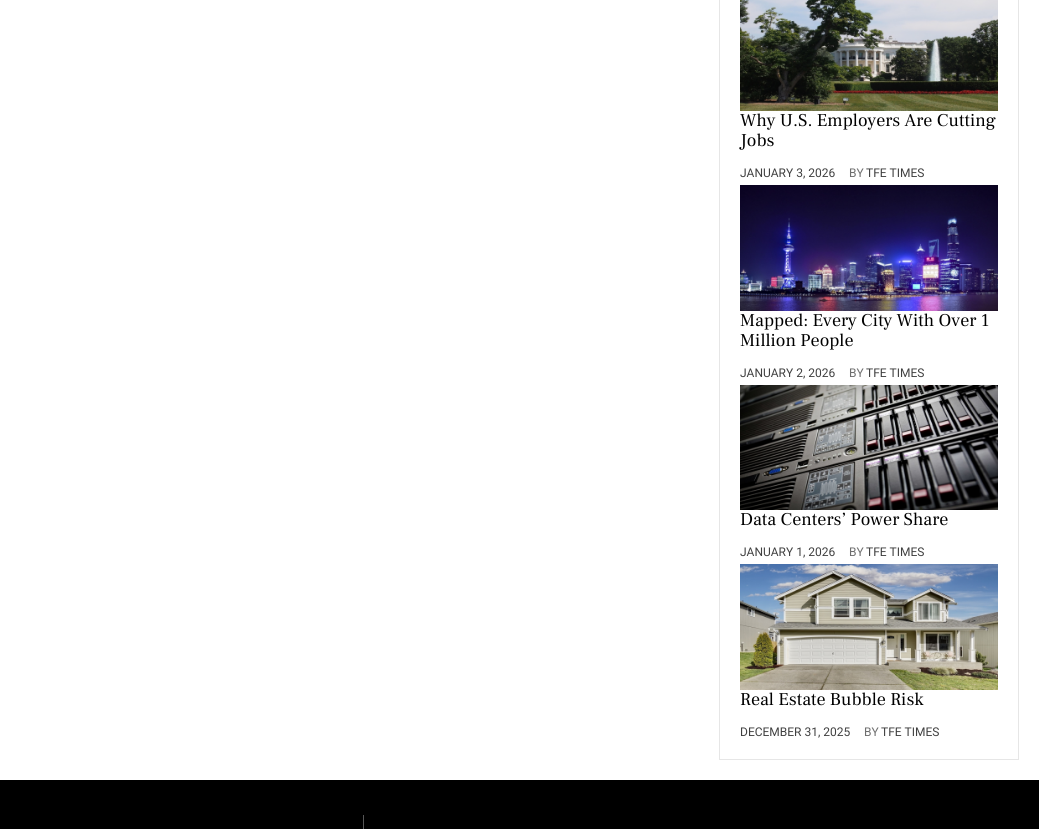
#include <cairo.h>
#include <math.h>
#include <stddef.h>

static cairo_t *ctx;

static void use_color(int r, int g, int b) {
    cairo_set_source_rgb(ctx, r / 255.0, g / 255.0, b / 255.0);
}

static void picture(const char *path, double x, double y, double w, double h) {
    cairo_surface_t *image = cairo_image_surface_create_from_png(path);
    cairo_save(ctx);
    cairo_set_source_surface(ctx, image, x, y);
    cairo_rectangle(ctx, x, y, w, h);
    cairo_fill(ctx);
    cairo_restore(ctx);
    cairo_surface_destroy(image);
}

int main(void) {
    cairo_surface_t *surface = cairo_image_surface_create(CAIRO_FORMAT_RGB24, 1039, 829);
    ctx = cairo_create(surface);
    cairo_font_options_t *options = cairo_font_options_create();
    cairo_font_options_set_hint_metrics(options, CAIRO_HINT_METRICS_OFF);
    cairo_font_options_set_hint_style(options, CAIRO_HINT_STYLE_NONE);
    cairo_set_font_options(ctx, options);
    cairo_set_miter_limit(ctx, 4);
    use_color(255, 255, 255);
    cairo_paint(ctx);
    cairo_rectangle(ctx, 719.5, -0.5, 299, 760);
    use_color(230, 230, 230);
    cairo_set_line_width(ctx, 1);
    cairo_stroke(ctx);
    picture("img1.png", 740, 0, 258, 111);
    cairo_select_font_face(ctx, "Frank Ruhl Libre", CAIRO_FONT_SLANT_NORMAL, CAIRO_FONT_WEIGHT_NORMAL);
    cairo_set_font_size(ctx, 18);
    use_color(0, 0, 0);
    cairo_move_to(ctx, 740, 126);
    cairo_show_text(ctx, "Why U.S. Employers Are Cutting");
    cairo_move_to(ctx, 740, 146);
    cairo_show_text(ctx, "Jobs");
    cairo_select_font_face(ctx, "Roboto", CAIRO_FONT_SLANT_NORMAL, CAIRO_FONT_WEIGHT_NORMAL);
    cairo_set_font_size(ctx, 12);
    use_color(64, 64, 64);
    cairo_move_to(ctx, 740, 177);
    cairo_show_text(ctx, "JANUARY 3, 2026");
    use_color(110, 110, 110);
    cairo_move_to(ctx, 849, 177);
    cairo_show_text(ctx, "BY");
    use_color(64, 64, 64);
    cairo_move_to(ctx, 866, 177);
    cairo_show_text(ctx, "TFE TIMES");
    picture("img2.png", 740, 185, 258, 126);
    cairo_select_font_face(ctx, "Frank Ruhl Libre", CAIRO_FONT_SLANT_NORMAL, CAIRO_FONT_WEIGHT_NORMAL);
    cairo_set_font_size(ctx, 18);
    use_color(0, 0, 0);
    cairo_move_to(ctx, 740, 326);
    cairo_show_text(ctx, "Mapped: Every City With Over 1");
    cairo_move_to(ctx, 740, 346);
    cairo_show_text(ctx, "Million People");
    cairo_select_font_face(ctx, "Roboto", CAIRO_FONT_SLANT_NORMAL, CAIRO_FONT_WEIGHT_NORMAL);
    cairo_set_font_size(ctx, 12);
    use_color(64, 64, 64);
    cairo_move_to(ctx, 740, 377);
    cairo_show_text(ctx, "JANUARY 2, 2026");
    use_color(110, 110, 110);
    cairo_move_to(ctx, 849, 377);
    cairo_show_text(ctx, "BY");
    use_color(64, 64, 64);
    cairo_move_to(ctx, 866, 377);
    cairo_show_text(ctx, "TFE TIMES");
    picture("img3.png", 740, 385, 258, 125);
    cairo_select_font_face(ctx, "Frank Ruhl Libre", CAIRO_FONT_SLANT_NORMAL, CAIRO_FONT_WEIGHT_NORMAL);
    cairo_set_font_size(ctx, 18);
    use_color(0, 0, 0);
    cairo_move_to(ctx, 740, 525);
    cairo_show_text(ctx, "Data Centers’ Power Share");
    cairo_select_font_face(ctx, "Roboto", CAIRO_FONT_SLANT_NORMAL, CAIRO_FONT_WEIGHT_NORMAL);
    cairo_set_font_size(ctx, 12);
    use_color(64, 64, 64);
    cairo_move_to(ctx, 740, 556);
    cairo_show_text(ctx, "JANUARY 1, 2026");
    use_color(110, 110, 110);
    cairo_move_to(ctx, 849, 556);
    cairo_show_text(ctx, "BY");
    use_color(64, 64, 64);
    cairo_move_to(ctx, 866, 556);
    cairo_show_text(ctx, "TFE TIMES");
    picture("img4.png", 740, 564, 258, 126);
    cairo_select_font_face(ctx, "Frank Ruhl Libre", CAIRO_FONT_SLANT_NORMAL, CAIRO_FONT_WEIGHT_NORMAL);
    cairo_set_font_size(ctx, 18);
    use_color(0, 0, 0);
    cairo_move_to(ctx, 740, 705);
    cairo_show_text(ctx, "Real Estate Bubble Risk");
    cairo_select_font_face(ctx, "Roboto", CAIRO_FONT_SLANT_NORMAL, CAIRO_FONT_WEIGHT_NORMAL);
    cairo_set_font_size(ctx, 12);
    use_color(64, 64, 64);
    cairo_move_to(ctx, 740, 736);
    cairo_show_text(ctx, "DECEMBER 31, 2025");
    use_color(110, 110, 110);
    cairo_move_to(ctx, 864, 736);
    cairo_show_text(ctx, "BY");
    use_color(64, 64, 64);
    cairo_move_to(ctx, 881, 736);
    cairo_show_text(ctx, "TFE TIMES");
    use_color(0, 0, 0);
    cairo_rectangle(ctx, 0, 780, 1039, 49);
    cairo_fill(ctx);
    use_color(87, 87, 87);
    cairo_rectangle(ctx, 363, 815, 1, 14);
    cairo_fill(ctx);
    cairo_surface_write_to_png(surface, "result.png");
    cairo_font_options_destroy(options);
    cairo_destroy(ctx);
    cairo_surface_destroy(surface);
    return 0;
}
